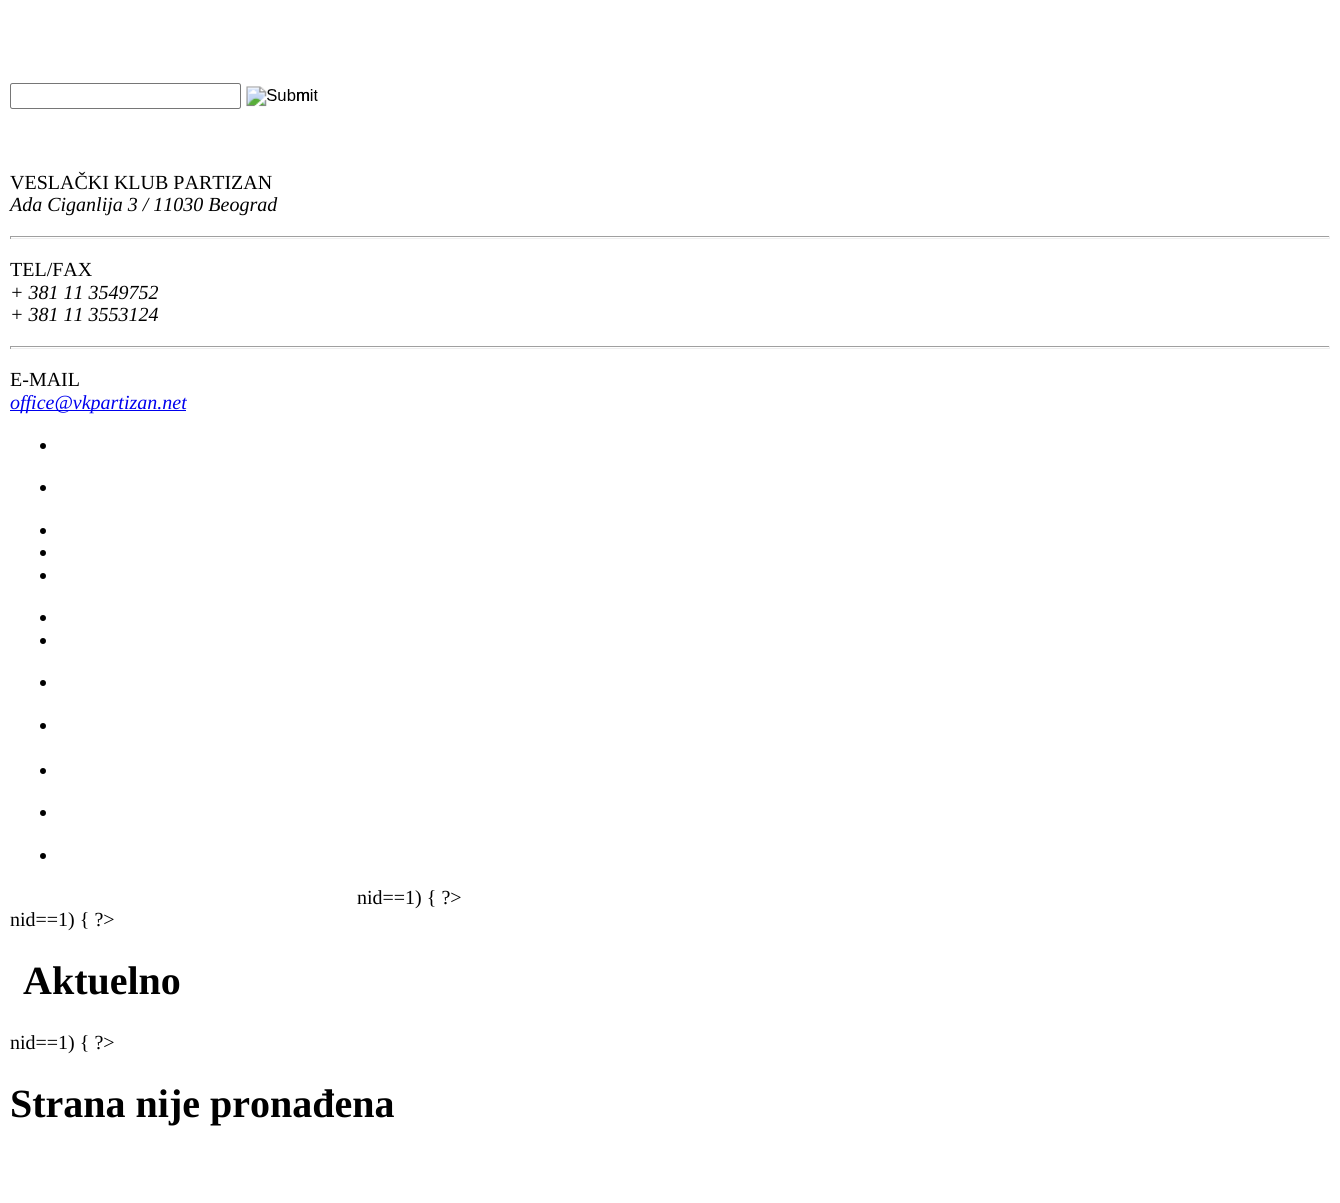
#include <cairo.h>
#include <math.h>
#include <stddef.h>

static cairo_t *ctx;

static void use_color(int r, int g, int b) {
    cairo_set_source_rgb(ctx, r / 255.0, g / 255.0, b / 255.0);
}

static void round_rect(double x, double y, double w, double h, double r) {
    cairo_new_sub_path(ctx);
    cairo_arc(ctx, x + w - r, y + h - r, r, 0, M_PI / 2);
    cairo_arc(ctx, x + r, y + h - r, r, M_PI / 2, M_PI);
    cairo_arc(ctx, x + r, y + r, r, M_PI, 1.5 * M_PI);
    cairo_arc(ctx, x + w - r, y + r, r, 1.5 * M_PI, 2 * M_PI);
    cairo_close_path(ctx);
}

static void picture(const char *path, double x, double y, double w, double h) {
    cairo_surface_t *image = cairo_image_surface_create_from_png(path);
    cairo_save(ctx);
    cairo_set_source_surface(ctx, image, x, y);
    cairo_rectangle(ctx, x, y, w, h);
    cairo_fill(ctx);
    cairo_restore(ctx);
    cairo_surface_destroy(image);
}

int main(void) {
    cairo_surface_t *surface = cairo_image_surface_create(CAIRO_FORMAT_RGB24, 1340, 1203);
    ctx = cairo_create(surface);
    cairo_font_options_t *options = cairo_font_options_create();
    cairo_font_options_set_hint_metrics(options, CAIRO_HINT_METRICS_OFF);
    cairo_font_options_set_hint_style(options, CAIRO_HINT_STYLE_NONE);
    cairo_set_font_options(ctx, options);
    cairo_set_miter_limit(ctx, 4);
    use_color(255, 255, 255);
    cairo_paint(ctx);
    round_rect(10.5, 83.5, 230, 25, 2);
    use_color(118, 118, 118);
    cairo_set_line_width(ctx, 1);
    cairo_stroke(ctx);
    picture("img1.png", 246, 86, 72, 21);
    cairo_select_font_face(ctx, "Liberation Sans", CAIRO_FONT_SLANT_NORMAL, CAIRO_FONT_WEIGHT_NORMAL);
    cairo_set_font_size(ctx, 17);
    use_color(0, 0, 0);
    cairo_move_to(ctx, 296, 101);
    cairo_show_text(ctx, "m");
    cairo_select_font_face(ctx, "Liberation Serif", CAIRO_FONT_SLANT_NORMAL, CAIRO_FONT_WEIGHT_NORMAL);
    cairo_set_font_size(ctx, 20);
    cairo_move_to(ctx, 10, 189);
    cairo_show_text(ctx, "VESLAČKI KLUB PARTIZAN");
    cairo_select_font_face(ctx, "Liberation Serif", CAIRO_FONT_SLANT_ITALIC, CAIRO_FONT_WEIGHT_NORMAL);
    cairo_move_to(ctx, 10, 211);
    cairo_show_text(ctx, "Ada Ciganlija 3 / 11030 Beograd");
    use_color(159, 159, 159);
    cairo_rectangle(ctx, 10, 236, 1320, 1);
    cairo_fill(ctx);
    use_color(238, 238, 238);
    cairo_rectangle(ctx, 1329, 236, 1, 3);
    cairo_fill(ctx);
    cairo_rectangle(ctx, 10, 238, 1320, 1);
    cairo_fill(ctx);
    use_color(159, 159, 159);
    cairo_rectangle(ctx, 10, 236, 1, 3);
    cairo_fill(ctx);
    cairo_select_font_face(ctx, "Liberation Serif", CAIRO_FONT_SLANT_NORMAL, CAIRO_FONT_WEIGHT_NORMAL);
    use_color(0, 0, 0);
    cairo_move_to(ctx, 10, 276);
    cairo_show_text(ctx, "TEL/FAX");
    cairo_select_font_face(ctx, "Liberation Serif", CAIRO_FONT_SLANT_ITALIC, CAIRO_FONT_WEIGHT_NORMAL);
    cairo_move_to(ctx, 10, 299);
    cairo_show_text(ctx, "+ 381 11 3549752");
    cairo_move_to(ctx, 10, 321);
    cairo_show_text(ctx, "+ 381 11 3553124");
    use_color(159, 159, 159);
    cairo_rectangle(ctx, 10, 346, 1320, 1);
    cairo_fill(ctx);
    use_color(238, 238, 238);
    cairo_rectangle(ctx, 1329, 346, 1, 3);
    cairo_fill(ctx);
    cairo_rectangle(ctx, 10, 348, 1320, 1);
    cairo_fill(ctx);
    use_color(159, 159, 159);
    cairo_rectangle(ctx, 10, 346, 1, 3);
    cairo_fill(ctx);
    cairo_select_font_face(ctx, "Liberation Serif", CAIRO_FONT_SLANT_NORMAL, CAIRO_FONT_WEIGHT_NORMAL);
    use_color(0, 0, 0);
    cairo_move_to(ctx, 10, 386);
    cairo_show_text(ctx, "E-MAIL");
    use_color(0, 0, 238);
    cairo_rectangle(ctx, 10, 410, 176, 1);
    cairo_fill(ctx);
    cairo_select_font_face(ctx, "Liberation Serif", CAIRO_FONT_SLANT_ITALIC, CAIRO_FONT_WEIGHT_NORMAL);
    cairo_move_to(ctx, 10, 409);
    cairo_show_text(ctx, "office@vkpartizan.net");
    use_color(0, 0, 0);
    cairo_new_path(ctx);
    cairo_arc(ctx, 43, 446, 3, 0, 2 * M_PI);
    cairo_fill(ctx);
    cairo_arc(ctx, 43, 488, 3, 0, 2 * M_PI);
    cairo_fill(ctx);
    cairo_arc(ctx, 43, 531, 3, 0, 2 * M_PI);
    cairo_fill(ctx);
    cairo_arc(ctx, 43, 553, 3, 0, 2 * M_PI);
    cairo_fill(ctx);
    cairo_arc(ctx, 43, 576, 3, 0, 2 * M_PI);
    cairo_fill(ctx);
    cairo_arc(ctx, 43, 618, 3, 0, 2 * M_PI);
    cairo_fill(ctx);
    cairo_arc(ctx, 43, 641, 3, 0, 2 * M_PI);
    cairo_fill(ctx);
    cairo_arc(ctx, 43, 683, 3, 0, 2 * M_PI);
    cairo_fill(ctx);
    cairo_arc(ctx, 43, 726, 3, 0, 2 * M_PI);
    cairo_fill(ctx);
    cairo_arc(ctx, 43, 771, 3, 0, 2 * M_PI);
    cairo_fill(ctx);
    cairo_arc(ctx, 43, 813, 3, 0, 2 * M_PI);
    cairo_fill(ctx);
    cairo_arc(ctx, 43, 856, 3, 0, 2 * M_PI);
    cairo_fill(ctx);
    cairo_select_font_face(ctx, "Liberation Serif", CAIRO_FONT_SLANT_NORMAL, CAIRO_FONT_WEIGHT_NORMAL);
    cairo_move_to(ctx, 357, 904);
    cairo_show_text(ctx, "nid==1) { ?>");
    cairo_move_to(ctx, 10, 926);
    cairo_show_text(ctx, "nid==1) { ?>");
    cairo_select_font_face(ctx, "Liberation Serif", CAIRO_FONT_SLANT_NORMAL, CAIRO_FONT_WEIGHT_BOLD);
    cairo_set_font_size(ctx, 40);
    cairo_move_to(ctx, 23, 994);
    cairo_show_text(ctx, "Aktuelno");
    cairo_select_font_face(ctx, "Liberation Serif", CAIRO_FONT_SLANT_NORMAL, CAIRO_FONT_WEIGHT_NORMAL);
    cairo_set_font_size(ctx, 20);
    cairo_move_to(ctx, 10, 1049);
    cairo_show_text(ctx, "nid==1) { ?>");
    cairo_select_font_face(ctx, "Liberation Serif", CAIRO_FONT_SLANT_NORMAL, CAIRO_FONT_WEIGHT_BOLD);
    cairo_set_font_size(ctx, 40);
    cairo_move_to(ctx, 10, 1117);
    cairo_show_text(ctx, "Strana nije pronađena");
    cairo_surface_write_to_png(surface, "result.png");
    cairo_font_options_destroy(options);
    cairo_destroy(ctx);
    cairo_surface_destroy(surface);
    return 0;
}
